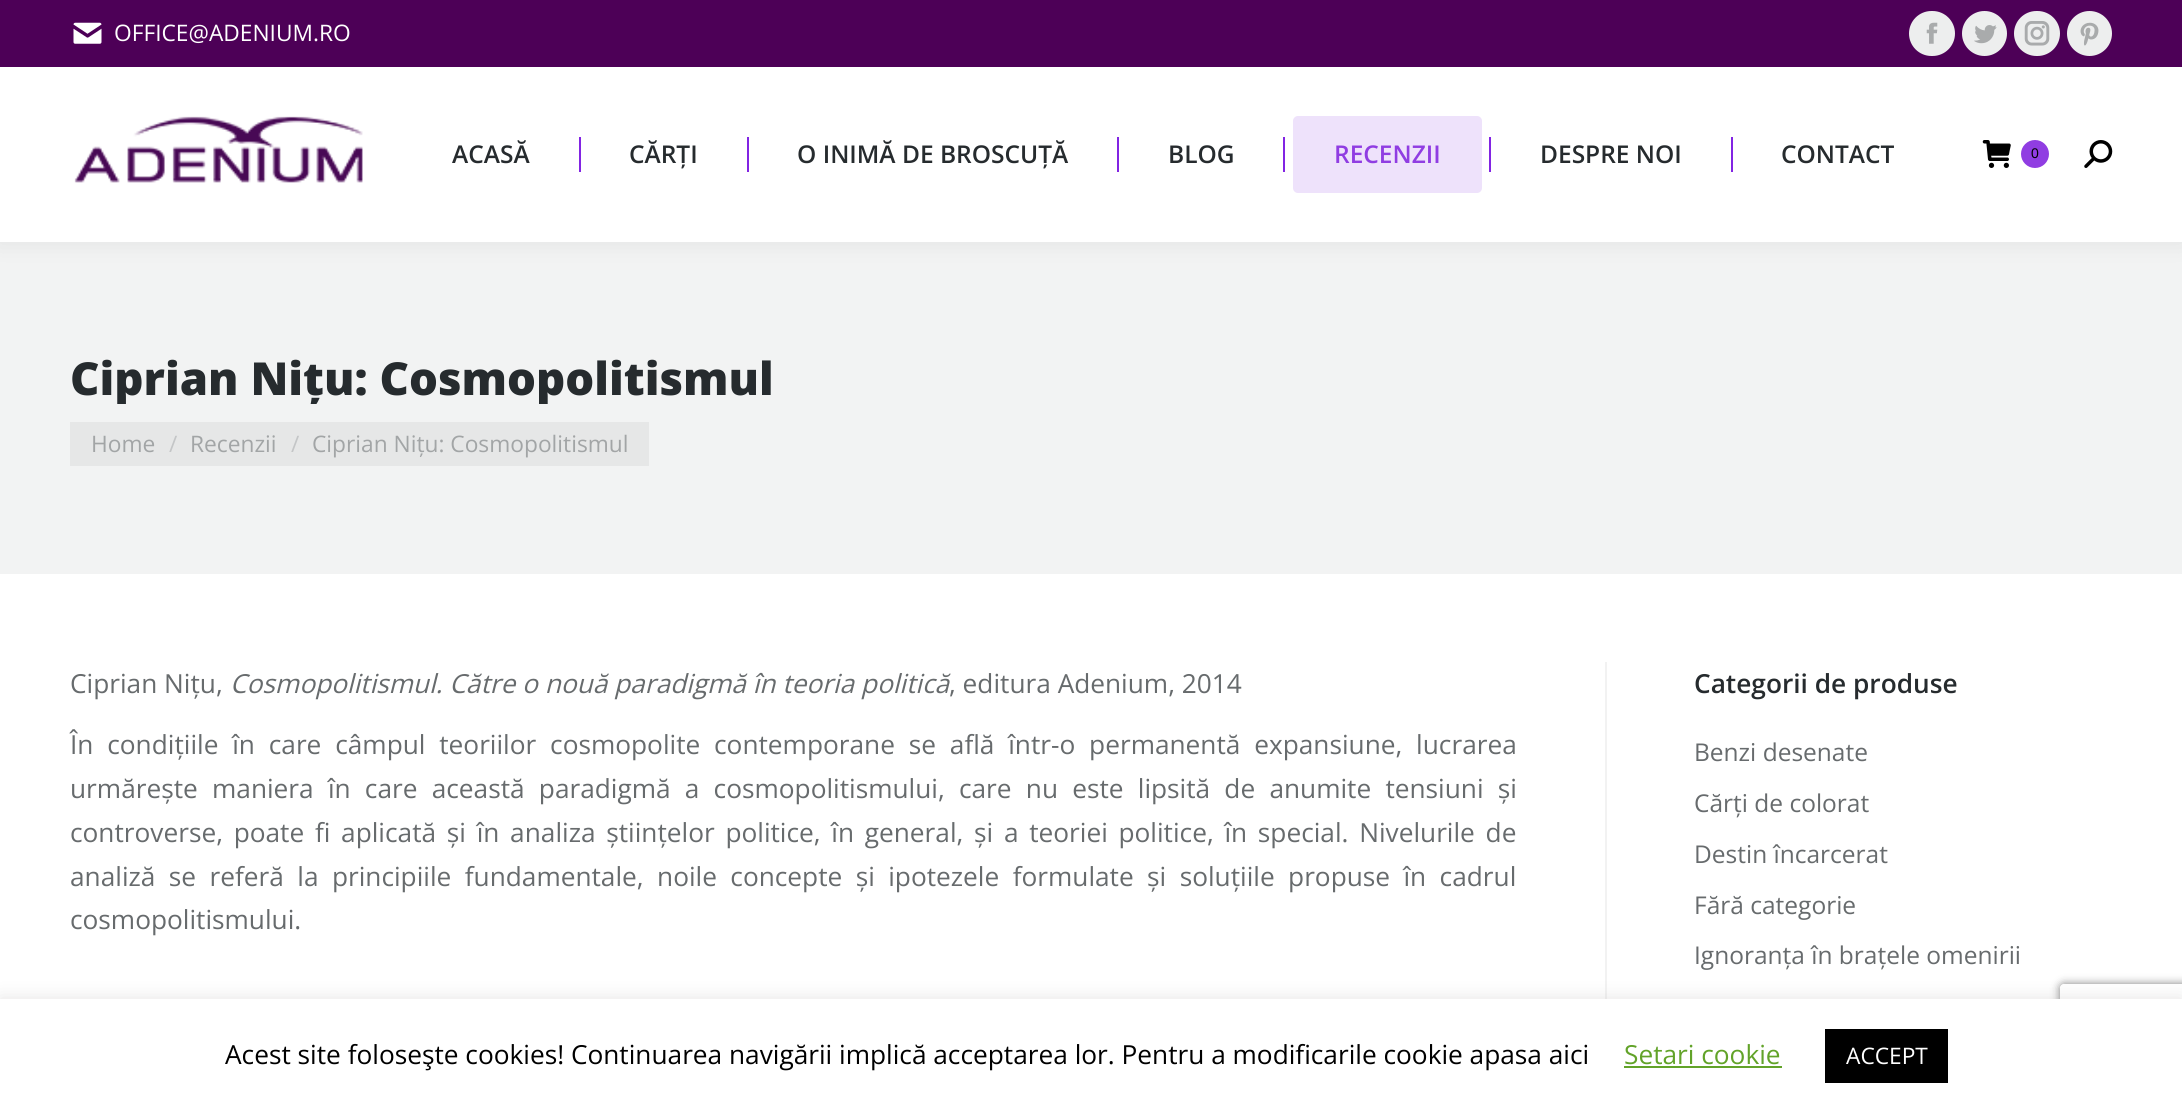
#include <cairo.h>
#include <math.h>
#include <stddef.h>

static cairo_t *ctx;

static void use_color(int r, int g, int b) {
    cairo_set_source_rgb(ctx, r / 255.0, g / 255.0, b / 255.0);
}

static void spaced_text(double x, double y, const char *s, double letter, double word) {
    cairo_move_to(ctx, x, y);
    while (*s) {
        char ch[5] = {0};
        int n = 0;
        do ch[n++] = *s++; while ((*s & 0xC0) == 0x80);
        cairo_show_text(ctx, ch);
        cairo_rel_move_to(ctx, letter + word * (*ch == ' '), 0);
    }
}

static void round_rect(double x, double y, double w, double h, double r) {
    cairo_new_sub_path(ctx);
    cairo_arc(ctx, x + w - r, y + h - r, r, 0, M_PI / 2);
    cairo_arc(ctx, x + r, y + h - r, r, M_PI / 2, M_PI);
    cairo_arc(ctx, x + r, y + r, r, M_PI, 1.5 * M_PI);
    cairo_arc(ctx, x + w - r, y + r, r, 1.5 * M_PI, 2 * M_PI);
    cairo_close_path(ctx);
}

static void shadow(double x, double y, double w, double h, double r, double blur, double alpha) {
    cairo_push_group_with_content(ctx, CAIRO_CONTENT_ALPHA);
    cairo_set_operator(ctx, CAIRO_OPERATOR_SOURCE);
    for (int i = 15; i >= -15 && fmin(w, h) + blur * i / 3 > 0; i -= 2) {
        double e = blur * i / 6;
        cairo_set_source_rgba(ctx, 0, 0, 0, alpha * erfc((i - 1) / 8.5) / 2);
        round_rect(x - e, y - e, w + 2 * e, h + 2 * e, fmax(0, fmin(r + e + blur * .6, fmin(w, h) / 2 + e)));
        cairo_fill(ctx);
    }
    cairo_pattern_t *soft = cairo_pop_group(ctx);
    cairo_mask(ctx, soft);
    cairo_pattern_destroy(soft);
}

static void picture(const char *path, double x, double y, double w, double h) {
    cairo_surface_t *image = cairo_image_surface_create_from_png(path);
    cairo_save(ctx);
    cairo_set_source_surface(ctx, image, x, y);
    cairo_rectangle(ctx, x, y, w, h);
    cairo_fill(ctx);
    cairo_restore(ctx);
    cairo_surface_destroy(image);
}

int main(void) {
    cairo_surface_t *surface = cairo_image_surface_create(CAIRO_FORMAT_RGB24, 2182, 1112);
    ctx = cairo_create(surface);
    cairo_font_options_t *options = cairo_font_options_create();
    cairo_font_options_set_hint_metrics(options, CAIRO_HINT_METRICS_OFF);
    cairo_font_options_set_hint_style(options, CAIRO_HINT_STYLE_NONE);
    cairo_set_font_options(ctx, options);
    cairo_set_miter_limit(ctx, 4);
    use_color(255, 255, 255);
    cairo_paint(ctx);
    use_color(242, 243, 243);
    cairo_rectangle(ctx, 0, 242, 2182, 332);
    cairo_fill(ctx);
    use_color(0, 0, 0);
    shadow(-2, -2, 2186, 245, 0, 13, 0.07);
    use_color(255, 255, 255);
    cairo_rectangle(ctx, 0, 67, 2182, 175);
    cairo_fill(ctx);
    use_color(77, 0, 87);
    cairo_rectangle(ctx, 0, 0, 2182, 67);
    cairo_fill(ctx);
    picture("img1.png", 73, 22, 29, 22);
    cairo_select_font_face(ctx, "Open Sans", CAIRO_FONT_SLANT_NORMAL, CAIRO_FONT_WEIGHT_NORMAL);
    cairo_set_font_size(ctx, 22.75);
    use_color(255, 255, 255);
    cairo_move_to(ctx, 114, 41);
    cairo_show_text(ctx, "OFFICE@ADENIUM.RO");
    use_color(237, 238, 238);
    round_rect(1909, 11, 46, 45, 22.5);
    cairo_fill(ctx);
    picture("img2.png", 1926, 22, 12, 22);
    cairo_arc(ctx, 1984.5, 33.5, 22.5, 0, 2 * M_PI);
    cairo_fill(ctx);
    picture("img3.png", 1974, 25, 23, 19);
    round_rect(2014, 11, 46, 45, 22.5);
    cairo_fill(ctx);
    picture("img4.png", 2024, 21, 26, 25);
    cairo_arc(ctx, 2089.5, 33.5, 22.5, 0, 2 * M_PI);
    cairo_fill(ctx);
    picture("img5.png", 2080, 22, 19, 24);
    picture("img6.png", 74, 116, 289, 67);
    cairo_select_font_face(ctx, "Open Sans SemiBold", CAIRO_FONT_SLANT_NORMAL, CAIRO_FONT_WEIGHT_NORMAL);
    cairo_set_font_size(ctx, 24.5);
    use_color(38, 43, 46);
    cairo_move_to(ctx, 452, 163);
    cairo_show_text(ctx, "ACASĂ");
    use_color(130, 36, 227);
    cairo_rectangle(ctx, 579, 137, 2, 35);
    cairo_fill(ctx);
    use_color(38, 43, 46);
    cairo_move_to(ctx, 629, 163);
    cairo_show_text(ctx, "CĂRȚI");
    use_color(130, 36, 227);
    cairo_rectangle(ctx, 747, 137, 2, 35);
    cairo_fill(ctx);
    use_color(38, 43, 46);
    cairo_move_to(ctx, 797, 163);
    cairo_show_text(ctx, "O INIMĂ DE BROSCUȚĂ");
    use_color(130, 36, 227);
    cairo_rectangle(ctx, 1117, 137, 2, 35);
    cairo_fill(ctx);
    use_color(38, 43, 46);
    cairo_move_to(ctx, 1168, 163);
    cairo_show_text(ctx, "BLOG");
    use_color(130, 36, 227);
    cairo_rectangle(ctx, 1283, 137, 2, 35);
    cairo_fill(ctx);
    use_color(238, 226, 251);
    round_rect(1293, 116, 189, 77, 5);
    cairo_fill(ctx);
    use_color(144, 61, 226);
    cairo_move_to(ctx, 1334, 163);
    cairo_show_text(ctx, "RECENZII");
    use_color(130, 36, 227);
    cairo_rectangle(ctx, 1489, 137, 2, 35);
    cairo_fill(ctx);
    use_color(38, 43, 46);
    cairo_move_to(ctx, 1540, 163);
    cairo_show_text(ctx, "DESPRE NOI");
    use_color(130, 36, 227);
    cairo_rectangle(ctx, 1731, 137, 2, 35);
    cairo_fill(ctx);
    use_color(38, 43, 46);
    cairo_move_to(ctx, 1781, 163);
    cairo_show_text(ctx, "CONTACT");
    picture("img7.png", 1982, 140, 29, 28);
    use_color(144, 61, 226);
    cairo_arc(ctx, 2035, 154, 14, 0, 2 * M_PI);
    cairo_fill(ctx);
    cairo_select_font_face(ctx, "Liberation Sans", CAIRO_FONT_SLANT_NORMAL, CAIRO_FONT_WEIGHT_NORMAL);
    cairo_set_font_size(ctx, 14);
    use_color(0, 0, 0);
    cairo_move_to(ctx, 2031, 158);
    cairo_show_text(ctx, "0");
    picture("img8.png", 2084, 140, 29, 28);
    cairo_save(ctx);
    cairo_rectangle(ctx, 70, 352, 704, 52);
    cairo_clip(ctx);
    cairo_select_font_face(ctx, "Open Sans ExtraBold", CAIRO_FONT_SLANT_NORMAL, CAIRO_FONT_WEIGHT_NORMAL);
    cairo_set_font_size(ctx, 45.5);
    use_color(38, 43, 46);
    cairo_move_to(ctx, 70, 395);
    cairo_show_text(ctx, "Ciprian Nițu: Cosmopolitismul");
    cairo_restore(ctx);
    use_color(230, 231, 231);
    cairo_rectangle(ctx, 70, 422, 579, 44);
    cairo_fill(ctx);
    cairo_select_font_face(ctx, "Open Sans", CAIRO_FONT_SLANT_NORMAL, CAIRO_FONT_WEIGHT_NORMAL);
    cairo_set_font_size(ctx, 22.75);
    use_color(162, 165, 166);
    cairo_move_to(ctx, 91, 452);
    cairo_show_text(ctx, "Home");
    use_color(196, 198, 199);
    cairo_move_to(ctx, 169, 452);
    cairo_show_text(ctx, "/");
    use_color(162, 165, 166);
    cairo_move_to(ctx, 190, 452);
    cairo_show_text(ctx, "Recenzii");
    use_color(196, 198, 199);
    cairo_move_to(ctx, 291, 452);
    cairo_show_text(ctx, "/");
    use_color(162, 165, 166);
    cairo_move_to(ctx, 312, 452);
    cairo_show_text(ctx, "Ciprian Nițu: Cosmopolitismul");
    cairo_set_font_size(ctx, 26.25);
    use_color(103, 107, 109);
    cairo_move_to(ctx, 70, 693);
    cairo_show_text(ctx, "Ciprian Nițu,");
    cairo_select_font_face(ctx, "Open Sans", CAIRO_FONT_SLANT_ITALIC, CAIRO_FONT_WEIGHT_NORMAL);
    cairo_move_to(ctx, 230, 693);
    cairo_show_text(ctx, "Cosmopolitismul. Către o nouă paradigmă în teoria politică");
    cairo_select_font_face(ctx, "Open Sans", CAIRO_FONT_SLANT_NORMAL, CAIRO_FONT_WEIGHT_NORMAL);
    cairo_move_to(ctx, 949, 693);
    cairo_show_text(ctx, ", editura Adenium, 2014");
    spaced_text(70, 754, "În condițiile în care câmpul teoriilor cosmopolite contemporane se află într-o permanentă expansiune, lucrarea", 0, 7);
    spaced_text(70, 798, "urmărește maniera în care această paradigmă a cosmopolitismului, care nu este lipsită de anumite tensiuni și", 0, 7.4);
    spaced_text(70, 842, "controverse, poate fi aplicată și în analiza științelor politice, în general, și a teoriei politice, în special. Nivelurile de", 0, 3.9);
    spaced_text(70, 886, "analiză se referă la principiile fundamentale, noile concepte și ipotezele formulate și soluțiile propuse în cadrul", 0, 6.6);
    cairo_move_to(ctx, 70, 929);
    cairo_show_text(ctx, "cosmopolitismului.");
    use_color(242, 242, 242);
    cairo_rectangle(ctx, 1605, 662, 2, 337);
    cairo_fill(ctx);
    cairo_select_font_face(ctx, "Open Sans SemiBold", CAIRO_FONT_SLANT_NORMAL, CAIRO_FONT_WEIGHT_NORMAL);
    use_color(38, 43, 46);
    cairo_move_to(ctx, 1694, 693);
    cairo_show_text(ctx, "Categorii de produse");
    cairo_select_font_face(ctx, "Open Sans", CAIRO_FONT_SLANT_NORMAL, CAIRO_FONT_WEIGHT_NORMAL);
    cairo_set_font_size(ctx, 24.5);
    use_color(103, 107, 109);
    cairo_move_to(ctx, 1694, 761);
    cairo_show_text(ctx, "Benzi desenate");
    cairo_move_to(ctx, 1694, 812);
    cairo_show_text(ctx, "Cărți de colorat");
    cairo_move_to(ctx, 1694, 863);
    cairo_show_text(ctx, "Destin încarcerat");
    cairo_move_to(ctx, 1694, 914);
    cairo_show_text(ctx, "Fără categorie");
    cairo_move_to(ctx, 1694, 964);
    cairo_show_text(ctx, "Ignoranța în brațele omenirii");
    use_color(172, 171, 171);
    shadow(0, 998, 2182, 113, 0, 9, 0.3);
    cairo_save(ctx);
    cairo_set_fill_rule(ctx, CAIRO_FILL_RULE_EVEN_ODD);
    cairo_new_path(ctx);
    cairo_move_to(ctx, 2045, 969);
    cairo_line_to(ctx, 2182, 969);
    cairo_line_to(ctx, 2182, 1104);
    cairo_line_to(ctx, 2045, 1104);
    cairo_close_path(ctx);
    cairo_move_to(ctx, 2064, 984);
    cairo_line_to(ctx, 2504, 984);
    cairo_curve_to(ctx, 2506, 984, 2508, 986, 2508, 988);
    cairo_line_to(ctx, 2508, 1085);
    cairo_curve_to(ctx, 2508, 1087, 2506, 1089, 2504, 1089);
    cairo_line_to(ctx, 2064, 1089);
    cairo_curve_to(ctx, 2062, 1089, 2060, 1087, 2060, 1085);
    cairo_line_to(ctx, 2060, 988);
    cairo_curve_to(ctx, 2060, 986, 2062, 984, 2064, 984);
    cairo_close_path(ctx);
    cairo_clip(ctx);
    use_color(128, 128, 128);
    shadow(2060, 984, 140, 105, 4, 4.5, 1);
    cairo_restore(ctx);
    use_color(255, 255, 255);
    cairo_rectangle(ctx, 0, 999, 2182, 113);
    cairo_fill(ctx);
    cairo_set_font_size(ctx, 26.25);
    use_color(0, 0, 0);
    cairo_move_to(ctx, 225, 1064);
    cairo_show_text(ctx, "Acest site foloseşte cookies! Continuarea navigării implică acceptarea lor. Pentru a modificarile cookie apasa aici");
    use_color(98, 163, 41);
    cairo_move_to(ctx, 1624, 1064);
    cairo_show_text(ctx, "Setari cookie");
    cairo_rectangle(ctx, 1624, 1066, 158, 2);
    cairo_fill(ctx);
    use_color(0, 0, 0);
    cairo_rectangle(ctx, 1825, 1029, 123, 54);
    cairo_fill(ctx);
    cairo_set_font_size(ctx, 22.75);
    use_color(255, 255, 255);
    cairo_move_to(ctx, 1846, 1064);
    cairo_show_text(ctx, "ACCEPT");
    cairo_surface_write_to_png(surface, "result.png");
    cairo_font_options_destroy(options);
    cairo_destroy(ctx);
    cairo_surface_destroy(surface);
    return 0;
}
